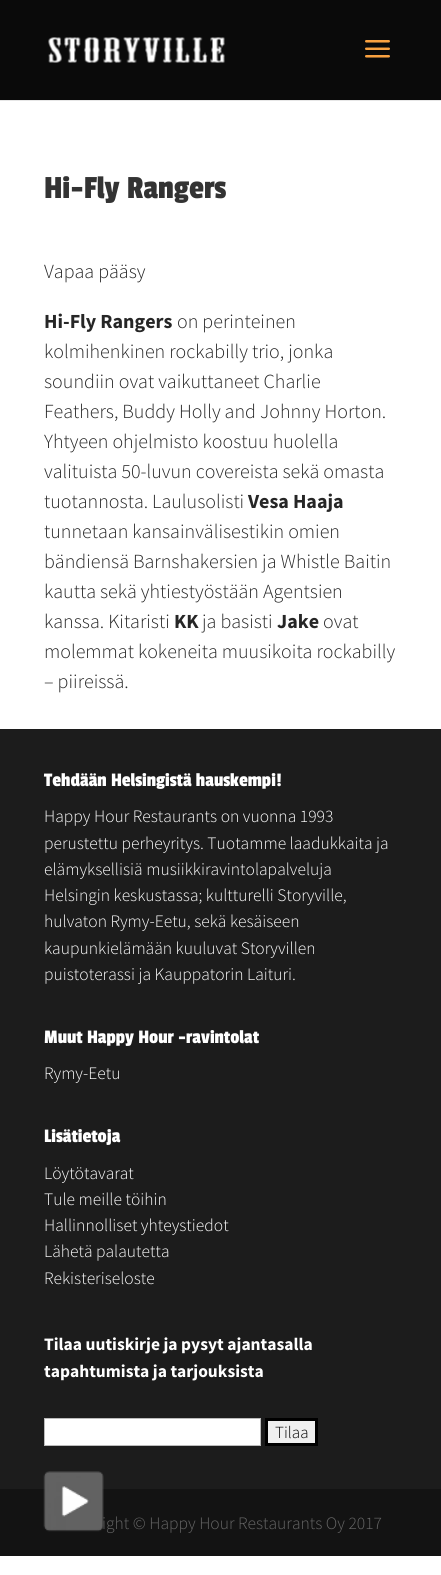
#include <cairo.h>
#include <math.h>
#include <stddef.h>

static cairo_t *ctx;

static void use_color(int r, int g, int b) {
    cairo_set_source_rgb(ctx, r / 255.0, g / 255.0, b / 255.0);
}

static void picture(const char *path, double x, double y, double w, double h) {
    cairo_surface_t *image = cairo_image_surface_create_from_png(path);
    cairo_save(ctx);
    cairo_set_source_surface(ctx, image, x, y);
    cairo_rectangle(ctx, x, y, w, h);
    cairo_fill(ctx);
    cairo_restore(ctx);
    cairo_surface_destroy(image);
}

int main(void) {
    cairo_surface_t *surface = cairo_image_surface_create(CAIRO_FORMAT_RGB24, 441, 1575);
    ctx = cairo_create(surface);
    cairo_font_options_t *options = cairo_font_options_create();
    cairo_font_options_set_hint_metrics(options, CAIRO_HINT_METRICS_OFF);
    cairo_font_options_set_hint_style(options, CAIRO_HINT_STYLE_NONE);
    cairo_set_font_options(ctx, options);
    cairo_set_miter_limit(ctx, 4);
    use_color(255, 255, 255);
    cairo_paint(ctx);
    use_color(230, 230, 230);
    cairo_rectangle(ctx, 0, 100, 441, 1);
    cairo_fill(ctx);
    use_color(10, 10, 10);
    cairo_rectangle(ctx, 0, 0, 441, 100);
    cairo_fill(ctx);
    picture("img1.png", 48, 37, 177, 26);
    picture("img2.png", 365, 40, 25, 18);
    cairo_select_font_face(ctx, "Passion One", CAIRO_FONT_SLANT_NORMAL, CAIRO_FONT_WEIGHT_NORMAL);
    cairo_set_font_size(ctx, 33.75);
    use_color(51, 51, 51);
    cairo_move_to(ctx, 44, 198);
    cairo_show_text(ctx, "Hi-Fly Rangers");
    cairo_select_font_face(ctx, "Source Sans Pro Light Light", CAIRO_FONT_SLANT_NORMAL, CAIRO_FONT_WEIGHT_NORMAL);
    cairo_set_font_size(ctx, 20);
    use_color(38, 38, 38);
    cairo_move_to(ctx, 44, 278);
    cairo_show_text(ctx, "Vapaa pääsy");
    cairo_select_font_face(ctx, "Source Sans Pro", CAIRO_FONT_SLANT_NORMAL, CAIRO_FONT_WEIGHT_BOLD);
    cairo_move_to(ctx, 44, 328);
    cairo_show_text(ctx, "Hi-Fly Rangers");
    cairo_select_font_face(ctx, "Source Sans Pro Light Light", CAIRO_FONT_SLANT_NORMAL, CAIRO_FONT_WEIGHT_NORMAL);
    cairo_move_to(ctx, 177, 328);
    cairo_show_text(ctx, "on perinteinen");
    cairo_move_to(ctx, 44, 358);
    cairo_show_text(ctx, "kolmihenkinen rockabilly trio, jonka");
    cairo_move_to(ctx, 44, 388);
    cairo_show_text(ctx, "soundiin ovat vaikuttaneet Charlie");
    cairo_move_to(ctx, 44, 418);
    cairo_show_text(ctx, "Feathers, Buddy Holly and Johnny Horton.");
    cairo_move_to(ctx, 44, 448);
    cairo_show_text(ctx, "Yhtyeen ohjelmisto koostuu huolella");
    cairo_move_to(ctx, 44, 478);
    cairo_show_text(ctx, "valituista 50-luvun covereista sekä omasta");
    cairo_move_to(ctx, 44, 508);
    cairo_show_text(ctx, "tuotannosta. Laulusolisti");
    cairo_select_font_face(ctx, "Source Sans Pro", CAIRO_FONT_SLANT_NORMAL, CAIRO_FONT_WEIGHT_BOLD);
    cairo_move_to(ctx, 248, 508);
    cairo_show_text(ctx, "Vesa Haaja");
    cairo_select_font_face(ctx, "Source Sans Pro Light Light", CAIRO_FONT_SLANT_NORMAL, CAIRO_FONT_WEIGHT_NORMAL);
    cairo_move_to(ctx, 44, 538);
    cairo_show_text(ctx, "tunnetaan kansainvälisestikin omien");
    cairo_move_to(ctx, 44, 568);
    cairo_show_text(ctx, "bändiensä Barnshakersien ja Whistle Baitin");
    cairo_move_to(ctx, 44, 598);
    cairo_show_text(ctx, "kautta sekä yhtiestyöstään Agentsien");
    cairo_move_to(ctx, 44, 628);
    cairo_show_text(ctx, "kanssa. Kitaristi");
    cairo_select_font_face(ctx, "Source Sans Pro", CAIRO_FONT_SLANT_NORMAL, CAIRO_FONT_WEIGHT_BOLD);
    cairo_move_to(ctx, 174, 628);
    cairo_show_text(ctx, "KK");
    cairo_select_font_face(ctx, "Source Sans Pro Light Light", CAIRO_FONT_SLANT_NORMAL, CAIRO_FONT_WEIGHT_NORMAL);
    cairo_move_to(ctx, 202, 628);
    cairo_show_text(ctx, "ja basisti");
    cairo_select_font_face(ctx, "Source Sans Pro", CAIRO_FONT_SLANT_NORMAL, CAIRO_FONT_WEIGHT_BOLD);
    cairo_move_to(ctx, 277, 628);
    cairo_show_text(ctx, "Jake");
    cairo_select_font_face(ctx, "Source Sans Pro Light Light", CAIRO_FONT_SLANT_NORMAL, CAIRO_FONT_WEIGHT_NORMAL);
    cairo_move_to(ctx, 323, 628);
    cairo_show_text(ctx, "ovat");
    cairo_move_to(ctx, 44, 658);
    cairo_show_text(ctx, "molemmat kokeneita muusikoita rockabilly");
    cairo_move_to(ctx, 44, 688);
    cairo_show_text(ctx, "– piireissä.");
    use_color(28, 28, 28);
    cairo_rectangle(ctx, 0, 729, 441, 760);
    cairo_fill(ctx);
    cairo_select_font_face(ctx, "Passion One", CAIRO_FONT_SLANT_NORMAL, CAIRO_FONT_WEIGHT_NORMAL);
    use_color(255, 255, 255);
    cairo_move_to(ctx, 44, 786);
    cairo_show_text(ctx, "Tehdään Helsingistä hauskempi!");
    cairo_select_font_face(ctx, "Source Sans Pro Light Light", CAIRO_FONT_SLANT_NORMAL, CAIRO_FONT_WEIGHT_NORMAL);
    cairo_set_font_size(ctx, 17.5);
    cairo_move_to(ctx, 44, 822);
    cairo_show_text(ctx, "Happy Hour Restaurants on vuonna 1993");
    cairo_move_to(ctx, 44, 849);
    cairo_show_text(ctx, "perustettu perheyritys. Tuotamme laadukkaita ja");
    cairo_move_to(ctx, 44, 875);
    cairo_show_text(ctx, "elämyksellisiä musiikkiravintolapalveluja");
    cairo_move_to(ctx, 44, 901);
    cairo_show_text(ctx, "Helsingin keskustassa; kultturelli Storyville,");
    cairo_move_to(ctx, 44, 927);
    cairo_show_text(ctx, "hulvaton Rymy-Eetu, sekä kesäiseen");
    cairo_move_to(ctx, 44, 954);
    cairo_show_text(ctx, "kaupunkielämään kuuluvat Storyvillen");
    cairo_move_to(ctx, 44, 980);
    cairo_show_text(ctx, "puistoterassi ja Kauppatorin Laituri.");
    cairo_select_font_face(ctx, "Passion One", CAIRO_FONT_SLANT_NORMAL, CAIRO_FONT_WEIGHT_NORMAL);
    cairo_set_font_size(ctx, 20);
    cairo_move_to(ctx, 44, 1043);
    cairo_show_text(ctx, "Muut Happy Hour -ravintolat");
    cairo_select_font_face(ctx, "Source Sans Pro Light Light", CAIRO_FONT_SLANT_NORMAL, CAIRO_FONT_WEIGHT_NORMAL);
    cairo_set_font_size(ctx, 17.5);
    cairo_move_to(ctx, 44, 1079);
    cairo_show_text(ctx, "Rymy-Eetu");
    cairo_select_font_face(ctx, "Passion One", CAIRO_FONT_SLANT_NORMAL, CAIRO_FONT_WEIGHT_NORMAL);
    cairo_set_font_size(ctx, 20);
    cairo_move_to(ctx, 44, 1142);
    cairo_show_text(ctx, "Lisätietoja");
    cairo_select_font_face(ctx, "Source Sans Pro Light Light", CAIRO_FONT_SLANT_NORMAL, CAIRO_FONT_WEIGHT_NORMAL);
    cairo_set_font_size(ctx, 17.5);
    cairo_move_to(ctx, 44, 1179);
    cairo_show_text(ctx, "Löytötavarat");
    cairo_move_to(ctx, 44, 1205);
    cairo_show_text(ctx, "Tule meille töihin");
    cairo_move_to(ctx, 44, 1231);
    cairo_show_text(ctx, "Hallinnolliset yhteystiedot");
    cairo_move_to(ctx, 44, 1257);
    cairo_show_text(ctx, "Lähetä palautetta");
    cairo_move_to(ctx, 44, 1284);
    cairo_show_text(ctx, "Rekisteriseloste");
    cairo_select_font_face(ctx, "Source Sans Pro", CAIRO_FONT_SLANT_NORMAL, CAIRO_FONT_WEIGHT_BOLD);
    cairo_move_to(ctx, 44, 1350);
    cairo_show_text(ctx, "Tilaa uutiskirje ja pysyt ajantasalla");
    cairo_move_to(ctx, 44, 1377);
    cairo_show_text(ctx, "tapahtumista ja tarjouksista");
    cairo_rectangle(ctx, 44.5, 1418.5, 216, 27);
    cairo_fill_preserve(ctx);
    use_color(187, 187, 187);
    cairo_set_line_width(ctx, 1);
    cairo_stroke(ctx);
    use_color(239, 239, 239);
    cairo_rectangle(ctx, 266.5, 1419.5, 50, 25);
    cairo_fill_preserve(ctx);
    use_color(0, 0, 0);
    cairo_set_line_width(ctx, 3);
    cairo_stroke(ctx);
    cairo_select_font_face(ctx, "Source Sans Pro Light Light", CAIRO_FONT_SLANT_NORMAL, CAIRO_FONT_WEIGHT_NORMAL);
    cairo_set_font_size(ctx, 17);
    cairo_move_to(ctx, 275, 1438);
    cairo_show_text(ctx, "Tilaa");
    use_color(19, 19, 19);
    cairo_rectangle(ctx, 0, 1489, 441, 67);
    cairo_fill(ctx);
    cairo_set_font_size(ctx, 17.5);
    use_color(102, 102, 102);
    cairo_move_to(ctx, 102, 1529);
    cairo_show_text(ctx, "ight © Happy Hour Restaurants Oy 2017");
    picture("img3.png", 43, 1471, 61, 61);
    cairo_surface_write_to_png(surface, "result.png");
    cairo_font_options_destroy(options);
    cairo_destroy(ctx);
    cairo_surface_destroy(surface);
    return 0;
}
